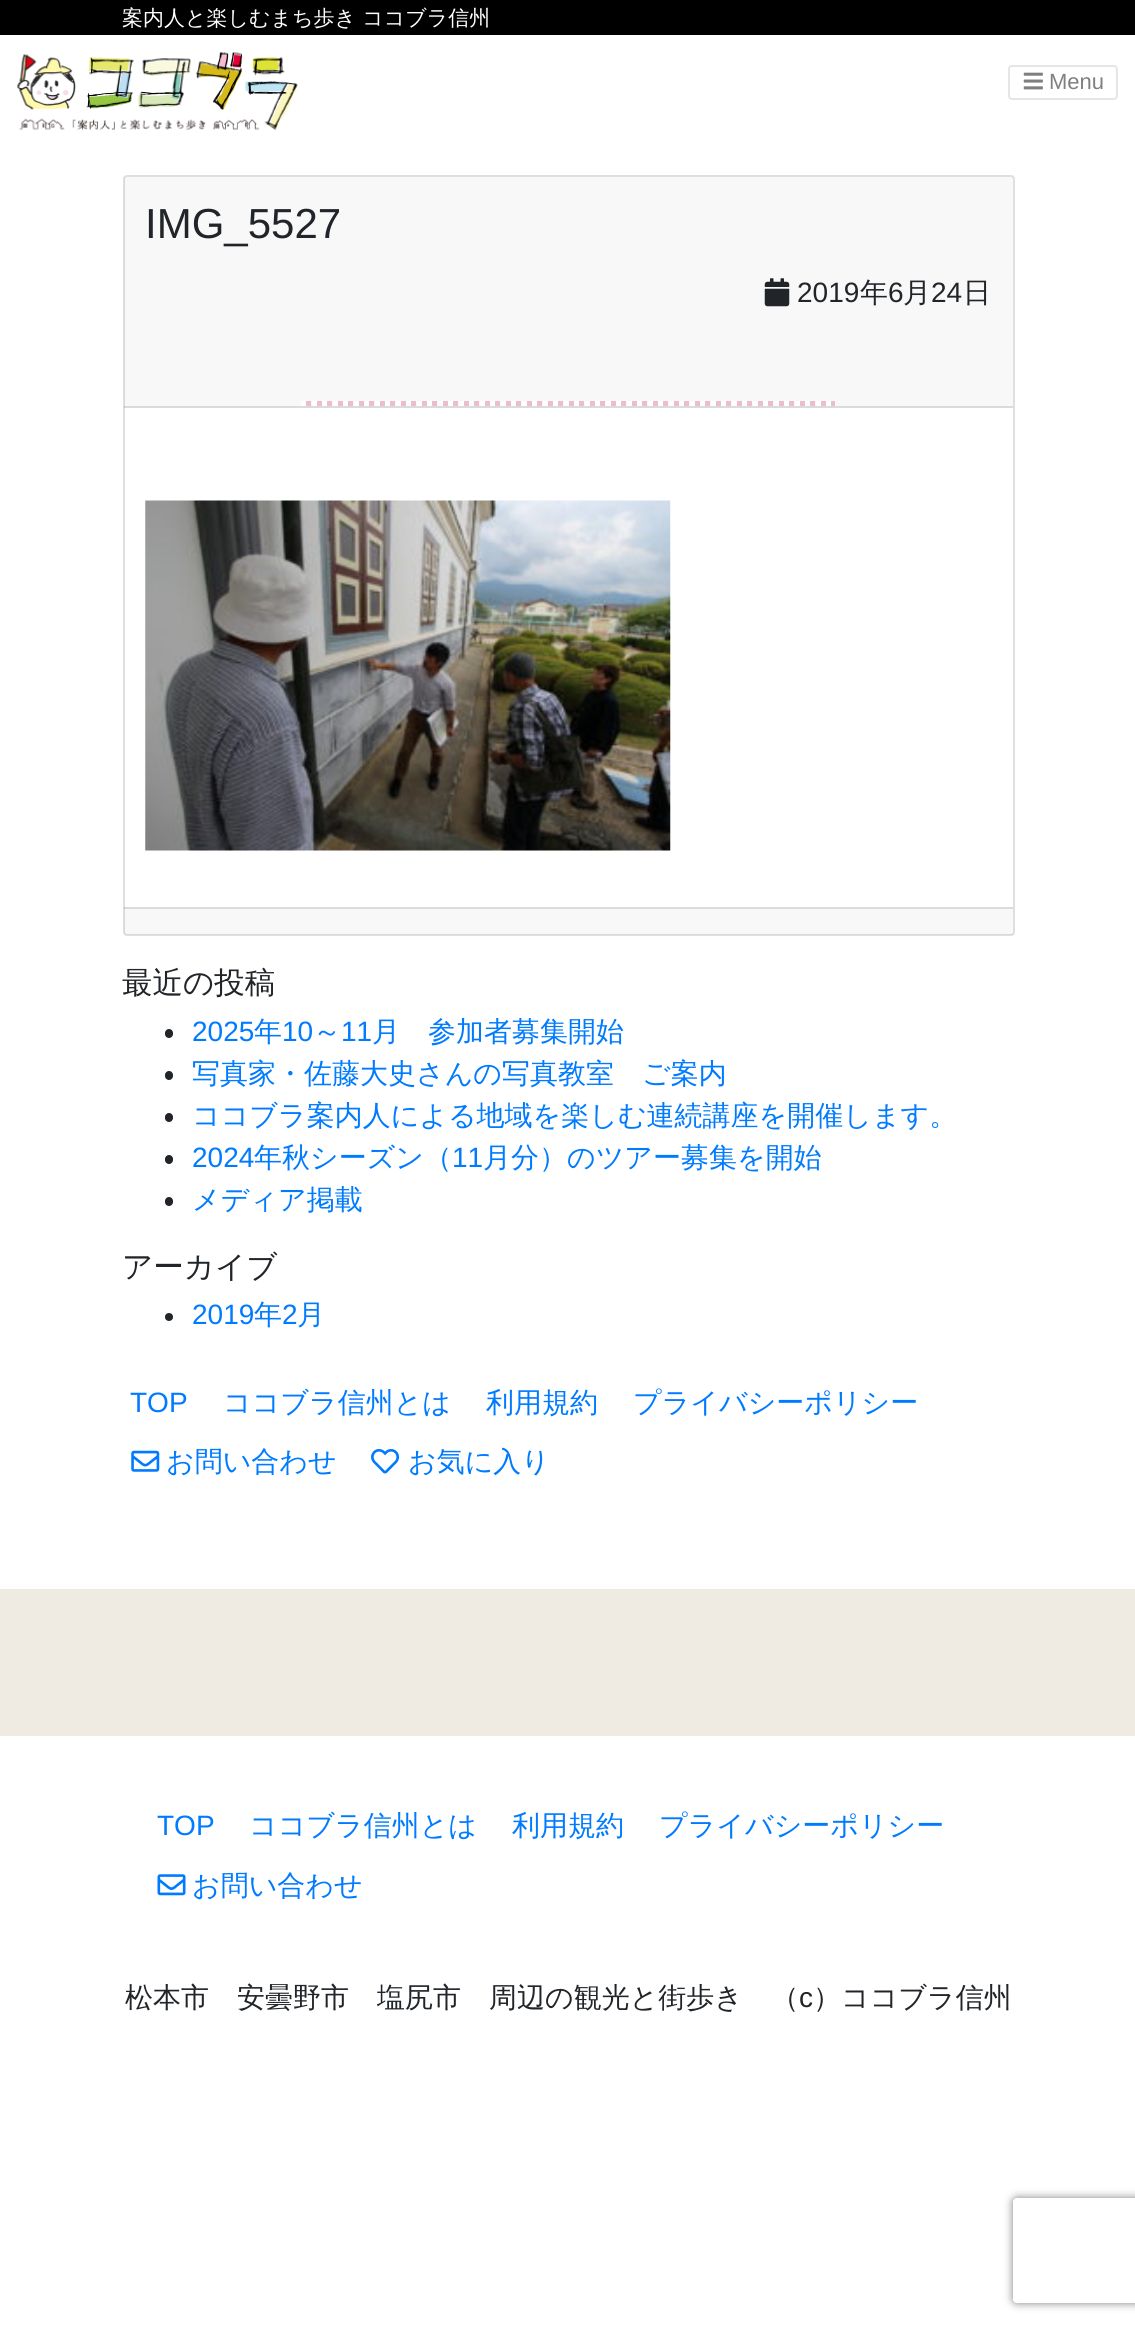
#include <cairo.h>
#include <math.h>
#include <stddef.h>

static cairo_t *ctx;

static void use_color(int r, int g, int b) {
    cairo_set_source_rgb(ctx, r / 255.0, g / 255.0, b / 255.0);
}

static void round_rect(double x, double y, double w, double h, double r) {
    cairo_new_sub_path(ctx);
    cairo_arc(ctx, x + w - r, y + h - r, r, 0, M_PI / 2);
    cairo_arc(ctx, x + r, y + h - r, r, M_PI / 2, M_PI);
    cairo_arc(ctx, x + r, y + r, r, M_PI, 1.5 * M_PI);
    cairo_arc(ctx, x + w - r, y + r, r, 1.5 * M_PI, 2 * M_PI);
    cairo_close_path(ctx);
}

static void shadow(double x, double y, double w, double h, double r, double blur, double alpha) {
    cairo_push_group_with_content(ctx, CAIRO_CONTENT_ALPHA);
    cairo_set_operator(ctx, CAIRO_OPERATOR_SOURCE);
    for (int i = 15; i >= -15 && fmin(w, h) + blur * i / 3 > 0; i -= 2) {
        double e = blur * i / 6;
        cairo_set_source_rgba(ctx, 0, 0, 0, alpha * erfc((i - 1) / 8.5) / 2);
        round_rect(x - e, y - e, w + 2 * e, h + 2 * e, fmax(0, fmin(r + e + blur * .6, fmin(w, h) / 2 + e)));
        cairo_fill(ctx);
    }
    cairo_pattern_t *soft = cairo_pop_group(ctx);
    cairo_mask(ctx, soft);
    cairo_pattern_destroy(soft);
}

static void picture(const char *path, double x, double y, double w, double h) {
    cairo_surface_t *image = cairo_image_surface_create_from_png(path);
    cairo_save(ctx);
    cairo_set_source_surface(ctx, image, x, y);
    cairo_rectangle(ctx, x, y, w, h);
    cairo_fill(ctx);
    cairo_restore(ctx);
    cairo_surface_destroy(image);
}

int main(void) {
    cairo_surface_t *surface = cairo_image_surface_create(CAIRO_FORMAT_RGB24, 1135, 2327);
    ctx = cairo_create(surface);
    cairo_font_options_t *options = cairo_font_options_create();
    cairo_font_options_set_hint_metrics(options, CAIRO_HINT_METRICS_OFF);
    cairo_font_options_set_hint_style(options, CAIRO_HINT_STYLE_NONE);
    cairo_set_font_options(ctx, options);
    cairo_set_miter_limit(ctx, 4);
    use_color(255, 255, 255);
    cairo_paint(ctx);
    use_color(0, 0, 0);
    cairo_rectangle(ctx, 0, 0, 1135, 35);
    cairo_fill(ctx);
    cairo_select_font_face(ctx, "WenQuanYi Zen Hei Medium", CAIRO_FONT_SLANT_NORMAL, CAIRO_FONT_WEIGHT_NORMAL);
    cairo_set_font_size(ctx, 21);
    use_color(255, 255, 255);
    cairo_move_to(ctx, 122, 25);
    cairo_show_text(ctx, "案内人と楽しむまち歩き ココブラ信州");
    picture("img1.png", 17, 52, 281, 78);
    round_rect(1009, 66, 108, 33, 3);
    use_color(230, 230, 230);
    cairo_stroke(ctx);
    picture("img2.png", 1023, 72, 20, 18);
    cairo_select_font_face(ctx, "Liberation Sans", CAIRO_FONT_SLANT_NORMAL, CAIRO_FONT_WEIGHT_NORMAL);
    cairo_set_font_size(ctx, 22);
    use_color(128, 128, 128);
    cairo_move_to(ctx, 1049, 89);
    cairo_show_text(ctx, "Menu");
    round_rect(124, 176, 890, 759, 3);
    use_color(223, 223, 223);
    cairo_stroke(ctx);
    cairo_set_source_rgba(ctx, 0, 0, 0, 0.03);
    cairo_rectangle(ctx, 124, 177, 889, 231);
    cairo_fill(ctx);
    cairo_set_source_rgba(ctx, 0, 0, 0, 0.12);
    cairo_rectangle(ctx, 124, 406, 889, 2);
    cairo_fill(ctx);
    cairo_set_font_size(ctx, 42);
    use_color(33, 37, 41);
    cairo_move_to(ctx, 145, 238);
    cairo_show_text(ctx, "IMG_5527");
    picture("img3.png", 764, 278, 26, 29);
    cairo_set_font_size(ctx, 28);
    cairo_move_to(ctx, 797, 302);
    cairo_show_text(ctx, "2019");
    cairo_select_font_face(ctx, "WenQuanYi Zen Hei Medium", CAIRO_FONT_SLANT_NORMAL, CAIRO_FONT_WEIGHT_NORMAL);
    cairo_move_to(ctx, 860, 302);
    cairo_show_text(ctx, "年");
    cairo_select_font_face(ctx, "Liberation Sans", CAIRO_FONT_SLANT_NORMAL, CAIRO_FONT_WEIGHT_NORMAL);
    cairo_move_to(ctx, 888, 302);
    cairo_show_text(ctx, "6");
    cairo_select_font_face(ctx, "WenQuanYi Zen Hei Medium", CAIRO_FONT_SLANT_NORMAL, CAIRO_FONT_WEIGHT_NORMAL);
    cairo_move_to(ctx, 903, 302);
    cairo_show_text(ctx, "月");
    cairo_select_font_face(ctx, "Liberation Sans", CAIRO_FONT_SLANT_NORMAL, CAIRO_FONT_WEIGHT_NORMAL);
    cairo_move_to(ctx, 931, 302);
    cairo_show_text(ctx, "24");
    cairo_select_font_face(ctx, "WenQuanYi Zen Hei Medium", CAIRO_FONT_SLANT_NORMAL, CAIRO_FONT_WEIGHT_NORMAL);
    cairo_move_to(ctx, 963, 302);
    cairo_show_text(ctx, "日");
    picture("img4.png", 301, 401, 534, 5);
    picture("img5.png", 145, 500, 526, 351);
    cairo_set_source_rgba(ctx, 0, 0, 0, 0.03);
    cairo_rectangle(ctx, 124, 907, 889, 28);
    cairo_fill(ctx);
    cairo_set_source_rgba(ctx, 0, 0, 0, 0.12);
    cairo_rectangle(ctx, 124, 907, 889, 2);
    cairo_fill(ctx);
    cairo_set_font_size(ctx, 30.5);
    use_color(33, 37, 41);
    cairo_move_to(ctx, 122, 993);
    cairo_show_text(ctx, "最近の投稿");
    round_rect(165, 1029, 8, 9, 4);
    cairo_fill(ctx);
    cairo_select_font_face(ctx, "Liberation Sans", CAIRO_FONT_SLANT_NORMAL, CAIRO_FONT_WEIGHT_NORMAL);
    cairo_set_font_size(ctx, 28);
    use_color(0, 123, 255);
    cairo_move_to(ctx, 192, 1041);
    cairo_show_text(ctx, "2025");
    cairo_select_font_face(ctx, "WenQuanYi Zen Hei Medium", CAIRO_FONT_SLANT_NORMAL, CAIRO_FONT_WEIGHT_NORMAL);
    cairo_move_to(ctx, 254, 1041);
    cairo_show_text(ctx, "年");
    cairo_select_font_face(ctx, "Liberation Sans", CAIRO_FONT_SLANT_NORMAL, CAIRO_FONT_WEIGHT_NORMAL);
    cairo_move_to(ctx, 282, 1041);
    cairo_show_text(ctx, "10");
    cairo_select_font_face(ctx, "WenQuanYi Zen Hei Medium", CAIRO_FONT_SLANT_NORMAL, CAIRO_FONT_WEIGHT_NORMAL);
    cairo_move_to(ctx, 313, 1041);
    cairo_show_text(ctx, "～");
    cairo_select_font_face(ctx, "Liberation Sans", CAIRO_FONT_SLANT_NORMAL, CAIRO_FONT_WEIGHT_NORMAL);
    cairo_move_to(ctx, 341, 1041);
    cairo_show_text(ctx, "11");
    cairo_select_font_face(ctx, "WenQuanYi Zen Hei Medium", CAIRO_FONT_SLANT_NORMAL, CAIRO_FONT_WEIGHT_NORMAL);
    cairo_move_to(ctx, 372, 1041);
    cairo_show_text(ctx, "月　参加者募集開始");
    use_color(33, 37, 41);
    round_rect(165, 1071, 8, 9, 4);
    cairo_fill(ctx);
    use_color(0, 123, 255);
    cairo_move_to(ctx, 192, 1083);
    cairo_show_text(ctx, "写真家・佐藤大史さんの写真教室　ご案内");
    use_color(33, 37, 41);
    round_rect(165, 1113, 8, 9, 4);
    cairo_fill(ctx);
    use_color(0, 123, 255);
    cairo_move_to(ctx, 192, 1125);
    cairo_show_text(ctx, "ココブラ案内人による地域を楽しむ連続講座を開催します。");
    use_color(33, 37, 41);
    round_rect(165, 1155, 8, 9, 4);
    cairo_fill(ctx);
    cairo_select_font_face(ctx, "Liberation Sans", CAIRO_FONT_SLANT_NORMAL, CAIRO_FONT_WEIGHT_NORMAL);
    use_color(0, 123, 255);
    cairo_move_to(ctx, 192, 1167);
    cairo_show_text(ctx, "2024");
    cairo_select_font_face(ctx, "WenQuanYi Zen Hei Medium", CAIRO_FONT_SLANT_NORMAL, CAIRO_FONT_WEIGHT_NORMAL);
    cairo_move_to(ctx, 254, 1167);
    cairo_show_text(ctx, "年秋シーズン（");
    cairo_select_font_face(ctx, "Liberation Sans", CAIRO_FONT_SLANT_NORMAL, CAIRO_FONT_WEIGHT_NORMAL);
    cairo_move_to(ctx, 452, 1167);
    cairo_show_text(ctx, "11");
    cairo_select_font_face(ctx, "WenQuanYi Zen Hei Medium", CAIRO_FONT_SLANT_NORMAL, CAIRO_FONT_WEIGHT_NORMAL);
    cairo_move_to(ctx, 483, 1167);
    cairo_show_text(ctx, "月分）のツアー募集を開始");
    use_color(33, 37, 41);
    round_rect(165, 1197, 8, 9, 4);
    cairo_fill(ctx);
    use_color(0, 123, 255);
    cairo_move_to(ctx, 192, 1209);
    cairo_show_text(ctx, "メディア掲載");
    cairo_set_font_size(ctx, 30.5);
    use_color(33, 37, 41);
    cairo_move_to(ctx, 122, 1277);
    cairo_show_text(ctx, "アーカイブ");
    cairo_new_path(ctx);
    cairo_arc(ctx, 169, 1317, 4, 0, 2 * M_PI);
    cairo_fill(ctx);
    cairo_select_font_face(ctx, "Liberation Sans", CAIRO_FONT_SLANT_NORMAL, CAIRO_FONT_WEIGHT_NORMAL);
    cairo_set_font_size(ctx, 28);
    use_color(0, 123, 255);
    cairo_move_to(ctx, 192, 1324);
    cairo_show_text(ctx, "2019");
    cairo_select_font_face(ctx, "WenQuanYi Zen Hei Medium", CAIRO_FONT_SLANT_NORMAL, CAIRO_FONT_WEIGHT_NORMAL);
    cairo_move_to(ctx, 254, 1324);
    cairo_show_text(ctx, "年");
    cairo_select_font_face(ctx, "Liberation Sans", CAIRO_FONT_SLANT_NORMAL, CAIRO_FONT_WEIGHT_NORMAL);
    cairo_move_to(ctx, 282, 1324);
    cairo_show_text(ctx, "2");
    cairo_select_font_face(ctx, "WenQuanYi Zen Hei Medium", CAIRO_FONT_SLANT_NORMAL, CAIRO_FONT_WEIGHT_NORMAL);
    cairo_move_to(ctx, 297, 1324);
    cairo_show_text(ctx, "月");
    cairo_select_font_face(ctx, "Liberation Sans", CAIRO_FONT_SLANT_NORMAL, CAIRO_FONT_WEIGHT_NORMAL);
    cairo_move_to(ctx, 130, 1412);
    cairo_show_text(ctx, "TOP");
    cairo_select_font_face(ctx, "WenQuanYi Zen Hei Medium", CAIRO_FONT_SLANT_NORMAL, CAIRO_FONT_WEIGHT_NORMAL);
    cairo_move_to(ctx, 223, 1412);
    cairo_show_text(ctx, "ココブラ信州とは");
    cairo_move_to(ctx, 486, 1412);
    cairo_show_text(ctx, "利用規約");
    cairo_move_to(ctx, 633, 1412);
    cairo_show_text(ctx, "プライバシーポリシー");
    picture("img6.png", 131, 1450, 29, 22);
    cairo_move_to(ctx, 166, 1471);
    cairo_show_text(ctx, "お問い合わせ");
    picture("img7.png", 371, 1449, 29, 25);
    cairo_move_to(ctx, 408, 1471);
    cairo_show_text(ctx, "お気に入り");
    use_color(240, 235, 226);
    cairo_rectangle(ctx, 0, 1589, 1135, 147);
    cairo_fill(ctx);
    cairo_select_font_face(ctx, "Liberation Sans", CAIRO_FONT_SLANT_NORMAL, CAIRO_FONT_WEIGHT_NORMAL);
    use_color(0, 123, 255);
    cairo_move_to(ctx, 157, 1835);
    cairo_show_text(ctx, "TOP");
    cairo_select_font_face(ctx, "WenQuanYi Zen Hei Medium", CAIRO_FONT_SLANT_NORMAL, CAIRO_FONT_WEIGHT_NORMAL);
    cairo_move_to(ctx, 249, 1835);
    cairo_show_text(ctx, "ココブラ信州とは");
    cairo_move_to(ctx, 512, 1835);
    cairo_show_text(ctx, "利用規約");
    cairo_move_to(ctx, 659, 1835);
    cairo_show_text(ctx, "プライバシーポリシー");
    picture("img8.png", 157, 1874, 29, 22);
    cairo_move_to(ctx, 192, 1895);
    cairo_show_text(ctx, "お問い合わせ");
    use_color(33, 37, 41);
    cairo_move_to(ctx, 125, 2007);
    cairo_show_text(ctx, "松本市　安曇野市　塩尻市　周辺の観光と街歩き　（");
    cairo_select_font_face(ctx, "Liberation Sans", CAIRO_FONT_SLANT_NORMAL, CAIRO_FONT_WEIGHT_NORMAL);
    cairo_move_to(ctx, 799, 2007);
    cairo_show_text(ctx, "c");
    cairo_select_font_face(ctx, "WenQuanYi Zen Hei Medium", CAIRO_FONT_SLANT_NORMAL, CAIRO_FONT_WEIGHT_NORMAL);
    cairo_move_to(ctx, 813, 2007);
    cairo_show_text(ctx, "）ココブラ信州");
    cairo_save(ctx);
    cairo_set_fill_rule(ctx, CAIRO_FILL_RULE_EVEN_ODD);
    cairo_new_path(ctx);
    cairo_move_to(ctx, 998, 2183);
    cairo_line_to(ctx, 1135, 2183);
    cairo_line_to(ctx, 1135, 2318);
    cairo_line_to(ctx, 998, 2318);
    cairo_close_path(ctx);
    cairo_move_to(ctx, 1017, 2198);
    cairo_line_to(ctx, 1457, 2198);
    cairo_curve_to(ctx, 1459, 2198, 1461, 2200, 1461, 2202);
    cairo_line_to(ctx, 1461, 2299);
    cairo_curve_to(ctx, 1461, 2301, 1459, 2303, 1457, 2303);
    cairo_line_to(ctx, 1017, 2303);
    cairo_curve_to(ctx, 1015, 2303, 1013, 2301, 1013, 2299);
    cairo_line_to(ctx, 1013, 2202);
    cairo_curve_to(ctx, 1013, 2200, 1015, 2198, 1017, 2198);
    cairo_close_path(ctx);
    cairo_clip(ctx);
    use_color(128, 128, 128);
    shadow(1013, 2198, 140, 105, 4, 4.5, 1);
    cairo_restore(ctx);
    cairo_surface_write_to_png(surface, "result.png");
    cairo_font_options_destroy(options);
    cairo_destroy(ctx);
    cairo_surface_destroy(surface);
    return 0;
}
